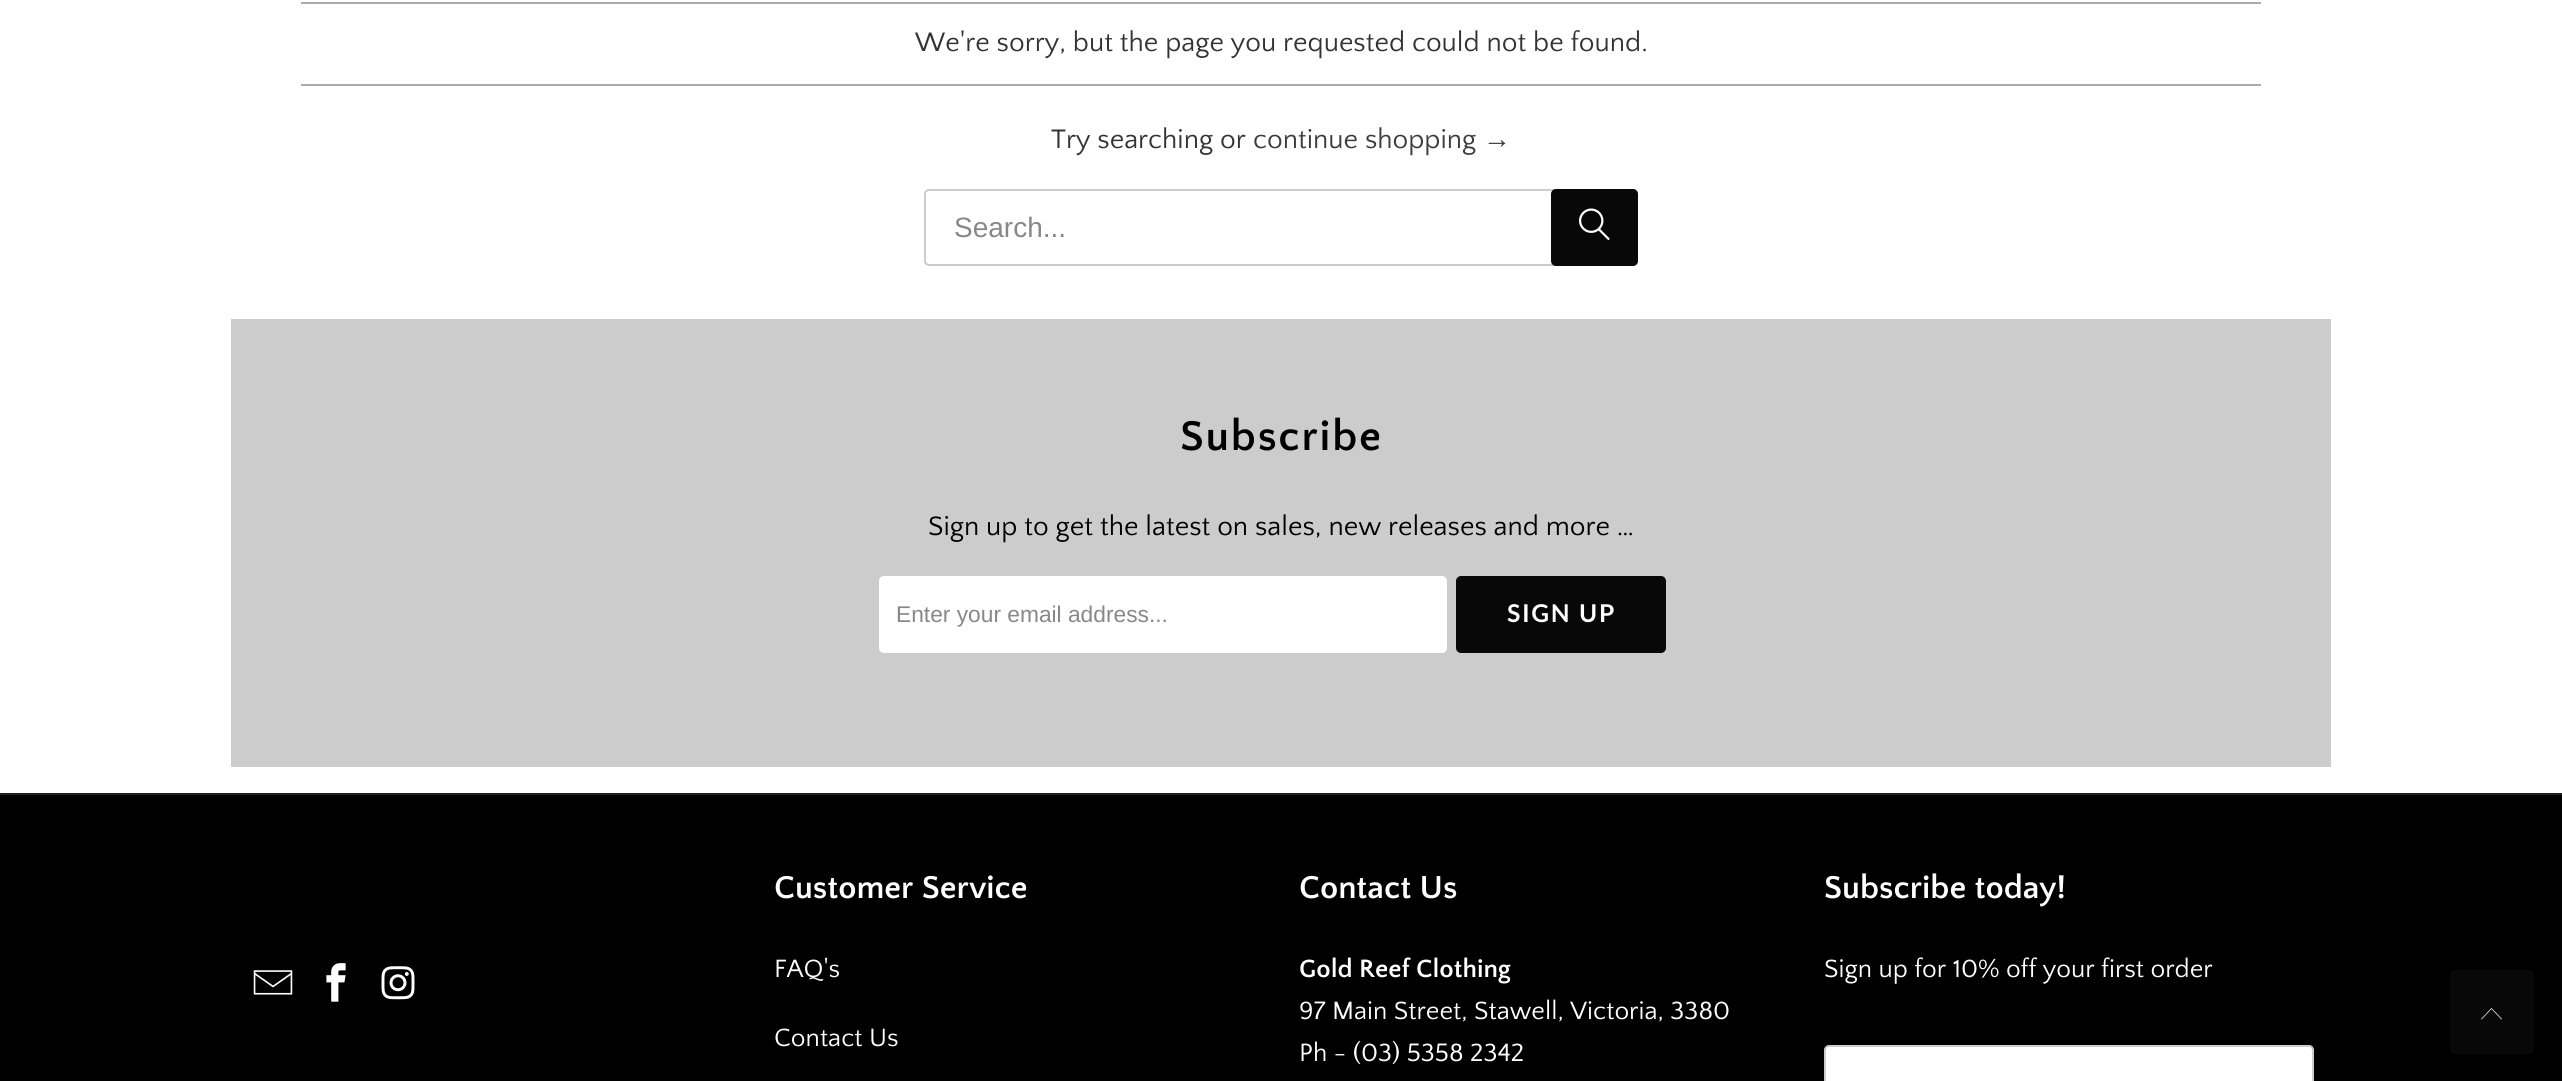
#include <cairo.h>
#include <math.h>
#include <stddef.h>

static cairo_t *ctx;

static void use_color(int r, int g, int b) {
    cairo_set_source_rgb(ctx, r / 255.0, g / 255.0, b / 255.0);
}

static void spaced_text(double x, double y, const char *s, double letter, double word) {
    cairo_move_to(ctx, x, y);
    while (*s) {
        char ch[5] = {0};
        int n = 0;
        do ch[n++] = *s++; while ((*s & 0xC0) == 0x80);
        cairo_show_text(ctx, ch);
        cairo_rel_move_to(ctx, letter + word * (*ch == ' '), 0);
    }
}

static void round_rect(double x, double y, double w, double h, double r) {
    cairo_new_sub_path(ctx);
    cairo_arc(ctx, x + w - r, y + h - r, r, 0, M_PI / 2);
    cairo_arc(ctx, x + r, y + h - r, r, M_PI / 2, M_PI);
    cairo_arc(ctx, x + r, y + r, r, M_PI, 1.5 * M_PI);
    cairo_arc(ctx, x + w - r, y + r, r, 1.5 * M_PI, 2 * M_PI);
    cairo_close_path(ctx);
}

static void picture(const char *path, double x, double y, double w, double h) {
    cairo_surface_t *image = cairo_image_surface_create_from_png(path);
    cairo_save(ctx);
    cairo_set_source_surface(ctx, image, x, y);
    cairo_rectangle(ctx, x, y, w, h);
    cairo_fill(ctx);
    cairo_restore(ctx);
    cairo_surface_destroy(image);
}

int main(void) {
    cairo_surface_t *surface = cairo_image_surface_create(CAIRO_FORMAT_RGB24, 2562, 1081);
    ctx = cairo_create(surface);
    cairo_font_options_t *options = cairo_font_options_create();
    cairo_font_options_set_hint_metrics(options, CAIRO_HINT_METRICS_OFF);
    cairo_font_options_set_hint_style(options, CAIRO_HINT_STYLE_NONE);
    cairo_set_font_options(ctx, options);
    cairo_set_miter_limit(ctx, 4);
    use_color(255, 255, 255);
    cairo_paint(ctx);
    use_color(170, 170, 170);
    cairo_rectangle(ctx, 301, 2, 1960, 2);
    cairo_fill(ctx);
    cairo_rectangle(ctx, 301, 84, 1960, 2);
    cairo_fill(ctx);
    cairo_select_font_face(ctx, "Quattrocento Sans", CAIRO_FONT_SLANT_NORMAL, CAIRO_FONT_WEIGHT_NORMAL);
    cairo_set_font_size(ctx, 28);
    use_color(51, 51, 51);
    cairo_move_to(ctx, 915, 51);
    cairo_show_text(ctx, "We're sorry, but the page you requested could not be found.");
    cairo_move_to(ctx, 1051, 148);
    cairo_show_text(ctx, "Try searching or");
    use_color(60, 60, 60);
    cairo_move_to(ctx, 1253, 148);
    cairo_show_text(ctx, "continue shopping");
    cairo_select_font_face(ctx, "Liberation Sans", CAIRO_FONT_SLANT_NORMAL, CAIRO_FONT_WEIGHT_NORMAL);
    cairo_move_to(ctx, 1483, 148);
    cairo_show_text(ctx, "→");
    round_rect(925, 190, 712, 75, 4);
    use_color(204, 204, 204);
    cairo_stroke(ctx);
    use_color(136, 136, 136);
    cairo_move_to(ctx, 954, 237);
    cairo_show_text(ctx, "Search...");
    use_color(8, 8, 8);
    round_rect(1551, 189, 87, 77, 5);
    cairo_fill(ctx);
    picture("img1.png", 1579, 208, 31, 32);
    use_color(204, 204, 204);
    cairo_rectangle(ctx, 231, 319, 2100, 448);
    cairo_fill(ctx);
    cairo_select_font_face(ctx, "Quattrocento Sans", CAIRO_FONT_SLANT_NORMAL, CAIRO_FONT_WEIGHT_BOLD);
    cairo_set_font_size(ctx, 43.75);
    use_color(0, 0, 0);
    spaced_text(1180, 450, "Subscribe", 1.75, 0);
    cairo_select_font_face(ctx, "Quattrocento Sans", CAIRO_FONT_SLANT_NORMAL, CAIRO_FONT_WEIGHT_NORMAL);
    cairo_set_font_size(ctx, 28);
    cairo_move_to(ctx, 928, 535);
    cairo_show_text(ctx, "Sign up to get the latest on sales, new releases and more …");
    use_color(255, 255, 255);
    round_rect(879, 576, 568, 77, 5);
    cairo_fill(ctx);
    cairo_select_font_face(ctx, "Liberation Sans", CAIRO_FONT_SLANT_NORMAL, CAIRO_FONT_WEIGHT_NORMAL);
    cairo_set_font_size(ctx, 22.75);
    use_color(136, 136, 136);
    cairo_move_to(ctx, 896, 622);
    cairo_show_text(ctx, "Enter your email address...");
    use_color(8, 8, 8);
    round_rect(1457, 577, 208, 75, 4);
    cairo_fill_preserve(ctx);
    cairo_stroke(ctx);
    cairo_select_font_face(ctx, "Lato", CAIRO_FONT_SLANT_NORMAL, CAIRO_FONT_WEIGHT_BOLD);
    cairo_set_font_size(ctx, 24.5);
    use_color(255, 255, 255);
    spaced_text(1507, 622, "SIGN UP", 1.75, 0);
    use_color(0, 0, 0);
    cairo_rectangle(ctx, 0, 795, 2562, 286);
    cairo_fill(ctx);
    use_color(27, 31, 35);
    cairo_rectangle(ctx, 0, 793, 2562, 2);
    cairo_fill(ctx);
    picture("img2.png", 253, 970, 40, 25);
    picture("img3.png", 326, 963, 20, 39);
    picture("img4.png", 381, 966, 34, 34);
    cairo_select_font_face(ctx, "Quattrocento Sans", CAIRO_FONT_SLANT_NORMAL, CAIRO_FONT_WEIGHT_BOLD);
    cairo_set_font_size(ctx, 33.25);
    use_color(255, 255, 255);
    cairo_move_to(ctx, 774, 898);
    cairo_show_text(ctx, "Customer Service");
    cairo_select_font_face(ctx, "Quattrocento Sans", CAIRO_FONT_SLANT_NORMAL, CAIRO_FONT_WEIGHT_NORMAL);
    cairo_set_font_size(ctx, 26.25);
    cairo_move_to(ctx, 774, 977);
    cairo_show_text(ctx, "FAQ's");
    cairo_move_to(ctx, 774, 1046);
    cairo_show_text(ctx, "Contact Us");
    cairo_select_font_face(ctx, "Quattrocento Sans", CAIRO_FONT_SLANT_NORMAL, CAIRO_FONT_WEIGHT_BOLD);
    cairo_set_font_size(ctx, 33.25);
    cairo_move_to(ctx, 1299, 898);
    cairo_show_text(ctx, "Contact Us");
    cairo_set_font_size(ctx, 26.25);
    cairo_move_to(ctx, 1299, 977);
    cairo_show_text(ctx, "Gold Reef Clothing");
    cairo_select_font_face(ctx, "Quattrocento Sans", CAIRO_FONT_SLANT_NORMAL, CAIRO_FONT_WEIGHT_NORMAL);
    cairo_move_to(ctx, 1299, 1019);
    cairo_show_text(ctx, "97 Main Street, Stawell, Victoria, 3380");
    cairo_move_to(ctx, 1299, 1061);
    cairo_show_text(ctx, "Ph - (03) 5358 2342");
    cairo_select_font_face(ctx, "Quattrocento Sans", CAIRO_FONT_SLANT_NORMAL, CAIRO_FONT_WEIGHT_BOLD);
    cairo_set_font_size(ctx, 33.25);
    cairo_move_to(ctx, 1824, 898);
    cairo_show_text(ctx, "Subscribe today!");
    cairo_select_font_face(ctx, "Quattrocento Sans", CAIRO_FONT_SLANT_NORMAL, CAIRO_FONT_WEIGHT_NORMAL);
    cairo_set_font_size(ctx, 26.25);
    cairo_move_to(ctx, 1824, 977);
    cairo_show_text(ctx, "Sign up for 10% off your first order");
    round_rect(1825, 1046, 488, 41, 4);
    cairo_fill_preserve(ctx);
    use_color(204, 204, 204);
    cairo_stroke(ctx);
    use_color(8, 8, 8);
    round_rect(2450, 970, 84, 84, 5);
    cairo_fill(ctx);
    use_color(255, 255, 255);
    cairo_new_path(ctx);
    cairo_move_to(ctx, 2491.5, 1008);
    cairo_line_to(ctx, 2502, 1019);
    cairo_line_to(ctx, 2501.5, 1019.5);
    cairo_line_to(ctx, 2491.5, 1009);
    cairo_line_to(ctx, 2481.5, 1019.5);
    cairo_line_to(ctx, 2481, 1019);
    cairo_close_path(ctx);
    cairo_fill(ctx);
    cairo_surface_write_to_png(surface, "result.png");
    cairo_font_options_destroy(options);
    cairo_destroy(ctx);
    cairo_surface_destroy(surface);
    return 0;
}
